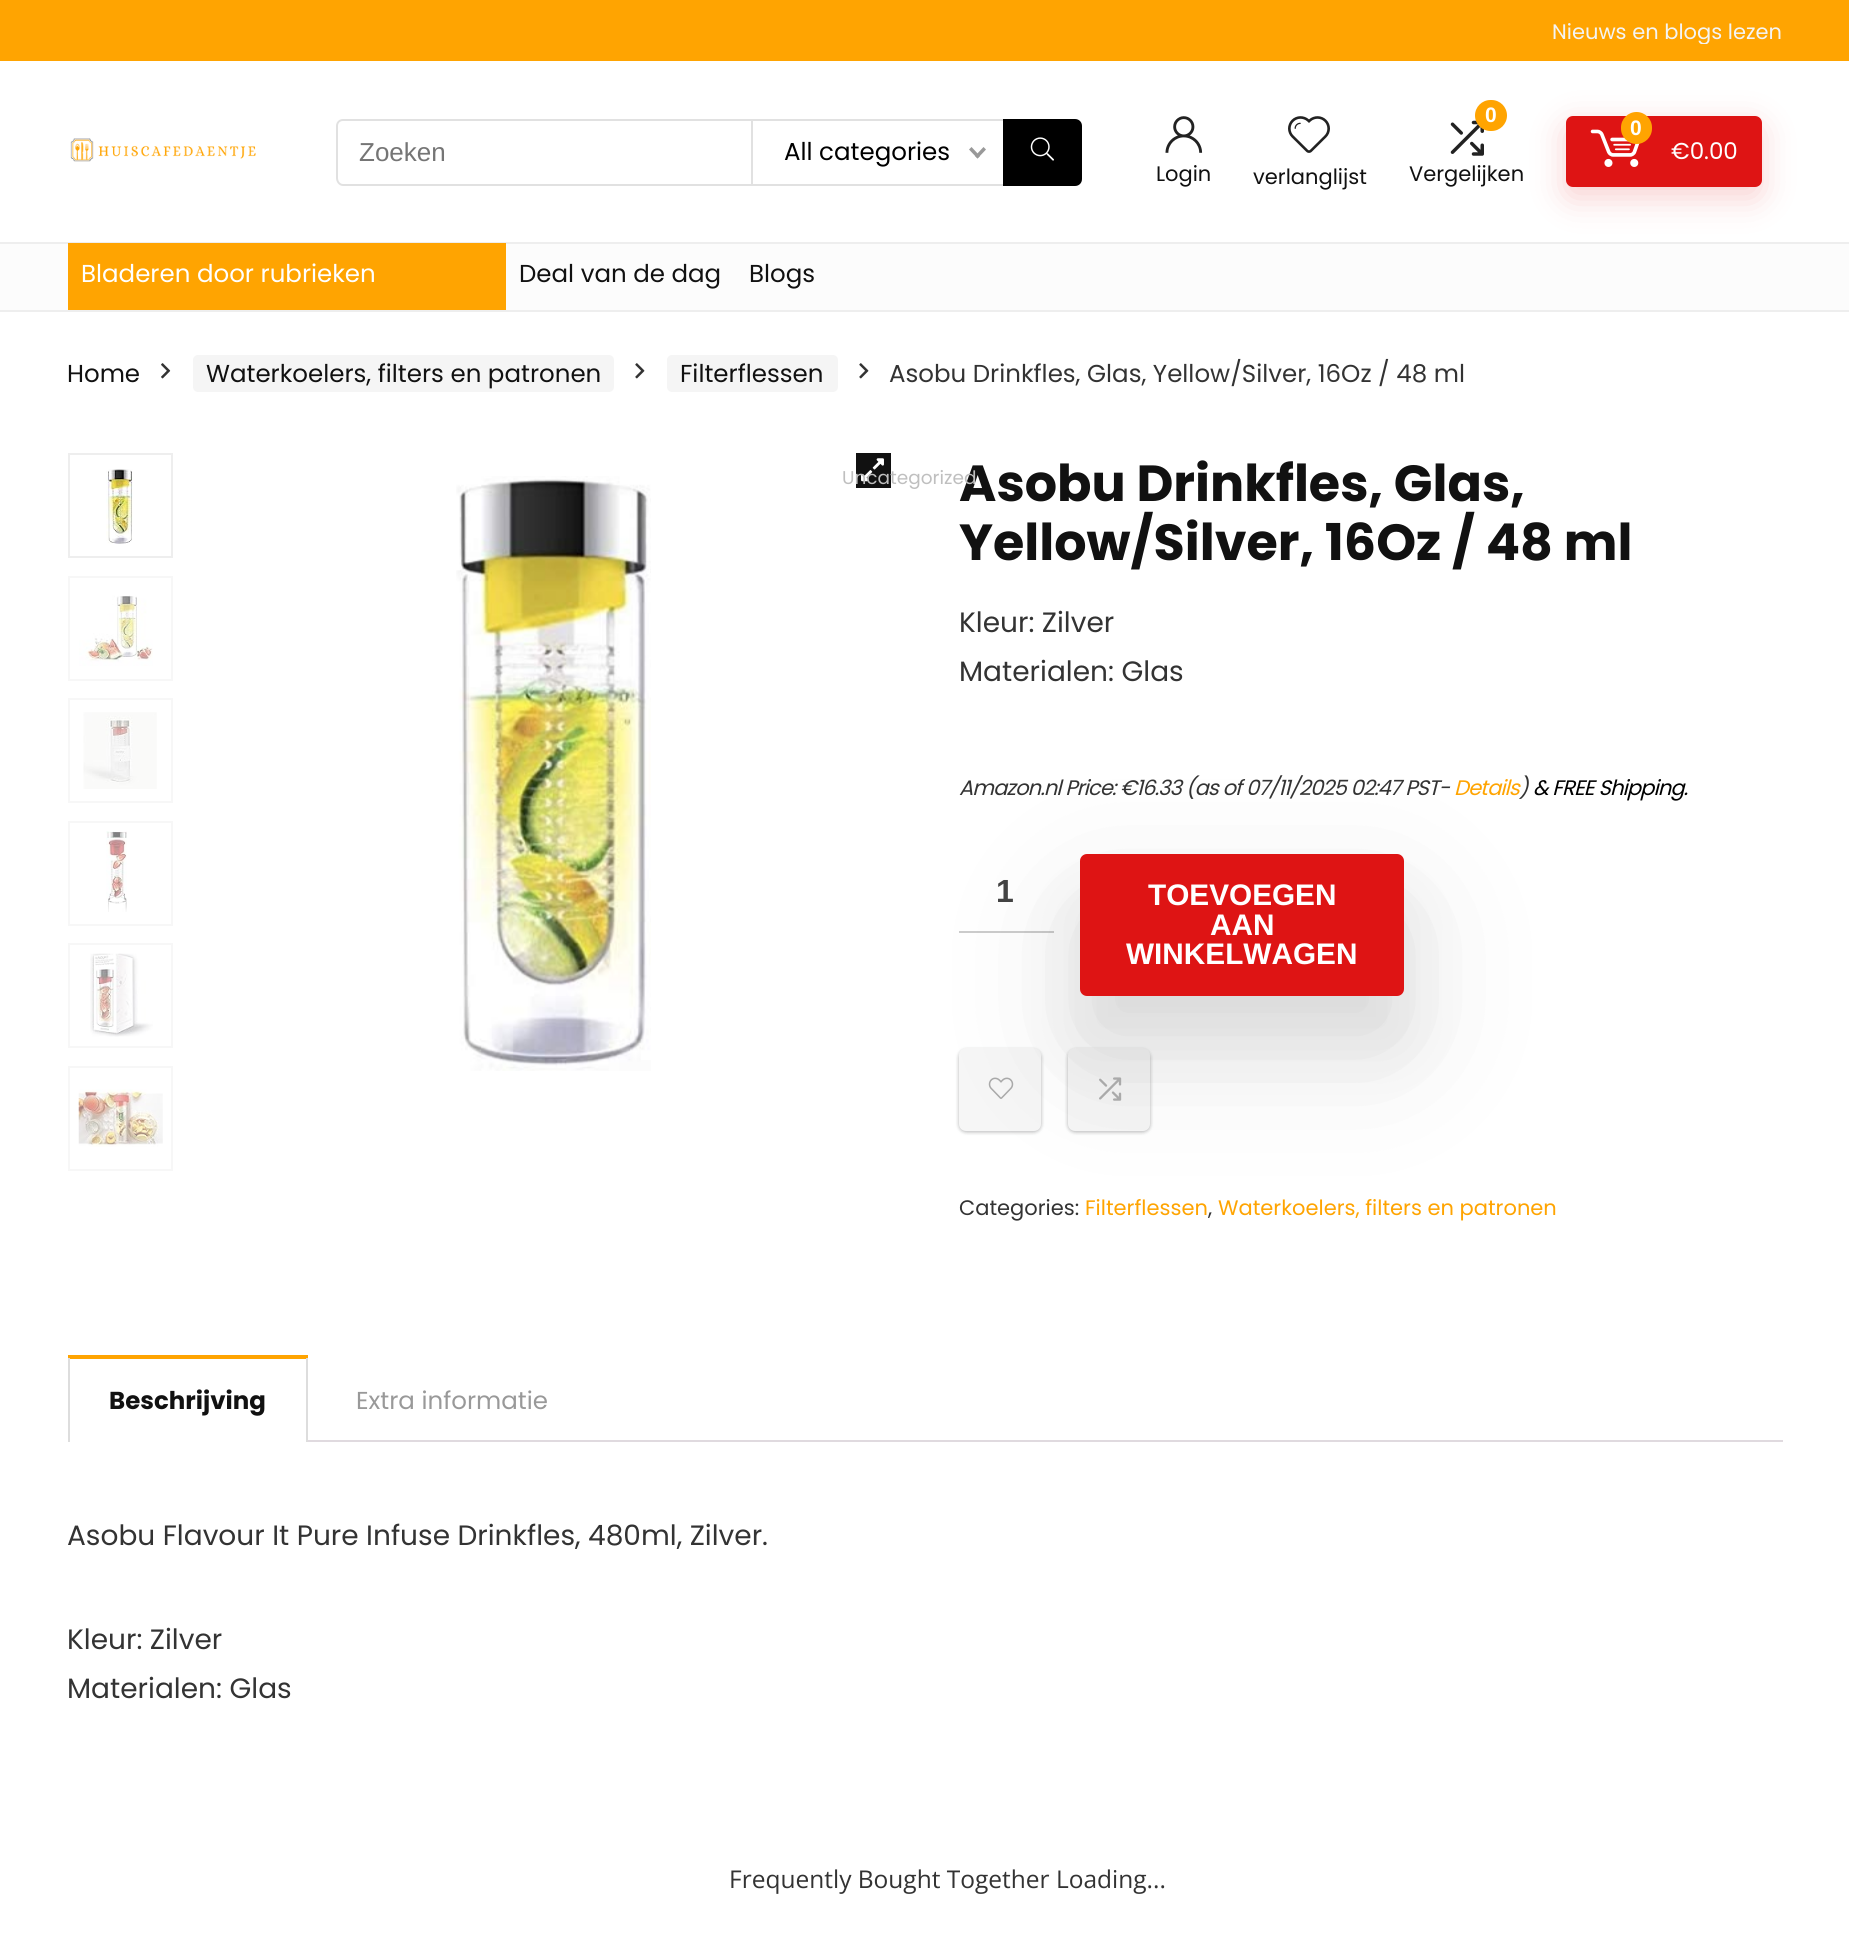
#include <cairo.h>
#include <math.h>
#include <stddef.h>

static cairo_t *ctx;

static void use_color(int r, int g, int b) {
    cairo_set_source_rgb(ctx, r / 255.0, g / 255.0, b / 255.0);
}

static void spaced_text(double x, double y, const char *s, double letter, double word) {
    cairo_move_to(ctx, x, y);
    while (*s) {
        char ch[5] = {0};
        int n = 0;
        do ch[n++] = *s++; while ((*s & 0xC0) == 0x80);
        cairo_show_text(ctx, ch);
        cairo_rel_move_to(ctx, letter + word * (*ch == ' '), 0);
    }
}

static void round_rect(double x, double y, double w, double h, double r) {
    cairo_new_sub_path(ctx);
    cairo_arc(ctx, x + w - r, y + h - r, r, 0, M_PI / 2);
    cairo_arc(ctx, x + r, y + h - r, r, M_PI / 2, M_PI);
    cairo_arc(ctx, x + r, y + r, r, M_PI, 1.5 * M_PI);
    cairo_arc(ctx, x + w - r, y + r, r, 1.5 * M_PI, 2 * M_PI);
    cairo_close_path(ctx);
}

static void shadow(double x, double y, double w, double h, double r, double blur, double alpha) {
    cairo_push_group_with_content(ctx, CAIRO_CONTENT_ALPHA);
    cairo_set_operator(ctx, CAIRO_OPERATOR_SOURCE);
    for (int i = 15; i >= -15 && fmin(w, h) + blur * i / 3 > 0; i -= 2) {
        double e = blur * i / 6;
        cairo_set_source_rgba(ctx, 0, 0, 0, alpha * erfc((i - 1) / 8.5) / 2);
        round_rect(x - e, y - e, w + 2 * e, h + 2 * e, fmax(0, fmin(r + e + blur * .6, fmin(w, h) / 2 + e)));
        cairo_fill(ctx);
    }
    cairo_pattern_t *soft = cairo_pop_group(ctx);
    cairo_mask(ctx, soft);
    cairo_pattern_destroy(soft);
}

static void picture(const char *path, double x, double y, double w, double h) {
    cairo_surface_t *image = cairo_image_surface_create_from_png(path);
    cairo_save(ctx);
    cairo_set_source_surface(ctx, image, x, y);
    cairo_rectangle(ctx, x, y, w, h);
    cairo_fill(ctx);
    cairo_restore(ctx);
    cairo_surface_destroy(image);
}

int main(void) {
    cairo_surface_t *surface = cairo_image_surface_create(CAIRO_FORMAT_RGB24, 1849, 1949);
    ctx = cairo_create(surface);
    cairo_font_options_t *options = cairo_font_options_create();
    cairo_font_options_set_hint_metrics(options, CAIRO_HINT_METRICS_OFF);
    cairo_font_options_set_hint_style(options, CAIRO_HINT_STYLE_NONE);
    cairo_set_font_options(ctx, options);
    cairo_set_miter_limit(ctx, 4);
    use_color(255, 255, 255);
    cairo_paint(ctx);
    use_color(255, 164, 1);
    cairo_rectangle(ctx, 0, 0, 1849, 61);
    cairo_fill(ctx);
    cairo_save(ctx);
    cairo_rectangle(ctx, 1552, 18, 231, 26);
    cairo_clip(ctx);
    cairo_select_font_face(ctx, "Poppins", CAIRO_FONT_SLANT_NORMAL, CAIRO_FONT_WEIGHT_NORMAL);
    cairo_set_font_size(ctx, 21);
    use_color(244, 244, 244);
    cairo_move_to(ctx, 1552, 39);
    cairo_show_text(ctx, "Nieuws en blogs lezen");
    cairo_restore(ctx);
    picture("img1.png", 70, 138, 186, 24);
    use_color(225, 225, 225);
    cairo_set_fill_rule(ctx, CAIRO_FILL_RULE_EVEN_ODD);
    cairo_new_path(ctx);
    cairo_move_to(ctx, 343, 119);
    cairo_line_to(ctx, 751, 119);
    cairo_line_to(ctx, 751, 186);
    cairo_line_to(ctx, 343, 186);
    cairo_curve_to(ctx, 339, 186, 336, 182, 336, 178);
    cairo_line_to(ctx, 336, 126);
    cairo_curve_to(ctx, 336, 122, 339, 119, 343, 119);
    cairo_close_path(ctx);
    cairo_move_to(ctx, 343, 121);
    cairo_line_to(ctx, 751, 121);
    cairo_line_to(ctx, 751, 184);
    cairo_line_to(ctx, 343, 184);
    cairo_curve_to(ctx, 340, 184, 338, 181, 338, 178);
    cairo_line_to(ctx, 338, 126);
    cairo_curve_to(ctx, 338, 123, 340, 121, 343, 121);
    cairo_close_path(ctx);
    cairo_fill(ctx);
    cairo_select_font_face(ctx, "Liberation Sans", CAIRO_FONT_SLANT_NORMAL, CAIRO_FONT_WEIGHT_NORMAL);
    cairo_set_font_size(ctx, 26);
    use_color(117, 117, 117);
    cairo_move_to(ctx, 359, 161);
    cairo_show_text(ctx, "Zoeken");
    use_color(225, 225, 225);
    cairo_rectangle(ctx, 751, 119, 252, 2);
    cairo_fill(ctx);
    cairo_rectangle(ctx, 751, 184, 252, 2);
    cairo_fill(ctx);
    cairo_rectangle(ctx, 751, 119, 2, 67);
    cairo_fill(ctx);
    cairo_select_font_face(ctx, "Poppins", CAIRO_FONT_SLANT_NORMAL, CAIRO_FONT_WEIGHT_NORMAL);
    cairo_set_font_size(ctx, 24.5);
    use_color(0, 0, 0);
    cairo_move_to(ctx, 784, 160);
    cairo_show_text(ctx, "All categories");
    use_color(153, 153, 153);
    cairo_set_fill_rule(ctx, CAIRO_FILL_RULE_WINDING);
    cairo_new_path(ctx);
    cairo_move_to(ctx, 983.5, 147);
    cairo_line_to(ctx, 986, 149.5);
    cairo_line_to(ctx, 977.5, 158.5);
    cairo_line_to(ctx, 975, 156);
    cairo_close_path(ctx);
    cairo_fill(ctx);
    cairo_new_path(ctx);
    cairo_move_to(ctx, 971.5, 147);
    cairo_line_to(ctx, 980, 156);
    cairo_line_to(ctx, 977.5, 158.5);
    cairo_line_to(ctx, 969, 149.5);
    cairo_close_path(ctx);
    cairo_fill(ctx);
    use_color(17, 17, 17);
    cairo_rectangle(ctx, 856, 453, 35, 35);
    cairo_fill(ctx);
    picture("img15.png", 861, 458, 23, 24);
    cairo_select_font_face(ctx, "Poppins", CAIRO_FONT_SLANT_NORMAL, CAIRO_FONT_WEIGHT_BOLD);
    cairo_set_font_size(ctx, 50.75);
    cairo_move_to(ctx, 959, 501);
    cairo_show_text(ctx, "Asobu Drinkfles, Glas,");
    cairo_select_font_face(ctx, "Poppins", CAIRO_FONT_SLANT_NORMAL, CAIRO_FONT_WEIGHT_NORMAL);
    cairo_set_font_size(ctx, 18.5);
    use_color(191, 191, 191);
    cairo_move_to(ctx, 842, 484);
    cairo_show_text(ctx, "Uncategorized");
    use_color(0, 0, 0);
    cairo_new_path(ctx);
    cairo_move_to(ctx, 1003, 119);
    cairo_line_to(ctx, 1075, 119);
    cairo_curve_to(ctx, 1079, 119, 1082, 122, 1082, 126);
    cairo_line_to(ctx, 1082, 179);
    cairo_curve_to(ctx, 1082, 183, 1079, 186, 1075, 186);
    cairo_line_to(ctx, 1003, 186);
    cairo_close_path(ctx);
    cairo_fill(ctx);
    picture("img2.png", 1030, 137, 24, 24);
    picture("img3.png", 1450, 120, 34, 36);
    use_color(255, 164, 1);
    round_rect(1475, 100, 32, 31, 15.5);
    cairo_fill(ctx);
    cairo_select_font_face(ctx, "Liberation Sans", CAIRO_FONT_SLANT_NORMAL, CAIRO_FONT_WEIGHT_BOLD);
    cairo_set_font_size(ctx, 21);
    use_color(255, 255, 255);
    cairo_move_to(ctx, 1485, 122);
    cairo_show_text(ctx, "0");
    cairo_select_font_face(ctx, "Poppins", CAIRO_FONT_SLANT_NORMAL, CAIRO_FONT_WEIGHT_NORMAL);
    use_color(17, 17, 17);
    cairo_move_to(ctx, 1409, 181);
    cairo_show_text(ctx, "Vergelijken");
    use_color(252, 252, 252);
    cairo_rectangle(ctx, 0, 244, 1849, 66);
    cairo_fill(ctx);
    use_color(238, 238, 238);
    cairo_rectangle(ctx, 0, 242, 1849, 2);
    cairo_fill(ctx);
    use_color(222, 20, 20);
    shadow(1565, 126, 196, 72, 7, 16.5, 0.2);
    use_color(222, 20, 20);
    round_rect(1566, 116, 196, 71, 7);
    cairo_fill(ctx);
    picture("img4.png", 1590, 129, 50, 38);
    use_color(255, 164, 1);
    round_rect(1621, 112, 31, 32, 15.5);
    cairo_fill(ctx);
    cairo_select_font_face(ctx, "Liberation Sans", CAIRO_FONT_SLANT_NORMAL, CAIRO_FONT_WEIGHT_BOLD);
    use_color(255, 255, 255);
    cairo_move_to(ctx, 1630, 135);
    cairo_show_text(ctx, "0");
    cairo_select_font_face(ctx, "Poppins", CAIRO_FONT_SLANT_NORMAL, CAIRO_FONT_WEIGHT_NORMAL);
    cairo_set_font_size(ctx, 23);
    cairo_move_to(ctx, 1671, 159);
    cairo_show_text(ctx, "€0.00");
    picture("img5.png", 1165, 116, 38, 37);
    cairo_set_font_size(ctx, 21);
    use_color(17, 17, 17);
    cairo_move_to(ctx, 1156, 181);
    cairo_show_text(ctx, "Login");
    picture("img6.png", 1288, 116, 42, 37);
    cairo_move_to(ctx, 1253, 184);
    cairo_show_text(ctx, "verlanglijst");
    use_color(238, 238, 238);
    cairo_rectangle(ctx, 0, 310, 1849, 2);
    cairo_fill(ctx);
    use_color(255, 164, 1);
    cairo_rectangle(ctx, 68, 243, 438, 67);
    cairo_fill(ctx);
    cairo_set_font_size(ctx, 24.5);
    use_color(255, 255, 255);
    cairo_move_to(ctx, 81, 282);
    cairo_show_text(ctx, "Bladeren door rubrieken");
    use_color(17, 17, 17);
    cairo_move_to(ctx, 519, 282);
    cairo_show_text(ctx, "Deal van de dag");
    cairo_move_to(ctx, 749, 282);
    cairo_show_text(ctx, "Blogs");
    cairo_move_to(ctx, 67, 382);
    cairo_show_text(ctx, "Home");
    picture("img7.png", 161, 363, 10, 16);
    use_color(245, 245, 245);
    round_rect(193, 355, 421, 37, 5);
    cairo_fill(ctx);
    use_color(17, 17, 17);
    cairo_move_to(ctx, 206, 382);
    cairo_show_text(ctx, "Waterkoelers, filters en patronen");
    picture("img8.png", 635, 363, 10, 16);
    use_color(245, 245, 245);
    round_rect(667, 355, 171, 37, 5);
    cairo_fill(ctx);
    use_color(17, 17, 17);
    cairo_move_to(ctx, 680, 382);
    cairo_show_text(ctx, "Filterflessen");
    picture("img8.png", 859, 363, 10, 16);
    use_color(51, 51, 51);
    cairo_move_to(ctx, 889, 382);
    cairo_show_text(ctx, "Asobu Drinkfles, Glas, Yellow/Silver, 16Oz / 48 ml");
    cairo_rectangle(ctx, 69, 454, 103, 103);
    use_color(238, 238, 238);
    cairo_stroke(ctx);
    picture("img9.png", 106, 469, 27, 75);
    cairo_rectangle(ctx, 69, 577, 103, 103);
    use_color(247, 247, 247);
    cairo_stroke(ctx);
    picture("img10.png", 79, 595, 74, 71);
    cairo_rectangle(ctx, 69, 699, 103, 103);
    cairo_stroke(ctx);
    picture("img11.png", 83, 712, 74, 77);
    cairo_rectangle(ctx, 69, 822, 103, 103);
    cairo_stroke(ctx);
    picture("img12.png", 106, 831, 21, 81);
    cairo_rectangle(ctx, 69, 944, 103, 103);
    cairo_stroke(ctx);
    picture("img13.png", 90, 953, 63, 84);
    cairo_rectangle(ctx, 69, 1067, 103, 103);
    cairo_stroke(ctx);
    picture("img14.png", 78, 1089, 85, 58);
    picture("img16.png", 456, 476, 195, 595);
    cairo_select_font_face(ctx, "Poppins", CAIRO_FONT_SLANT_NORMAL, CAIRO_FONT_WEIGHT_BOLD);
    cairo_set_font_size(ctx, 50.75);
    use_color(17, 17, 17);
    cairo_move_to(ctx, 959, 560);
    cairo_show_text(ctx, "Yellow/Silver, 16Oz / 48 ml");
    cairo_select_font_face(ctx, "Poppins", CAIRO_FONT_SLANT_NORMAL, CAIRO_FONT_WEIGHT_NORMAL);
    cairo_set_font_size(ctx, 28);
    use_color(51, 51, 51);
    cairo_move_to(ctx, 959, 632);
    cairo_show_text(ctx, "Kleur: Zilver");
    cairo_move_to(ctx, 959, 681);
    cairo_show_text(ctx, "Materialen: Glas");
    cairo_select_font_face(ctx, "Poppins", CAIRO_FONT_SLANT_ITALIC, CAIRO_FONT_WEIGHT_NORMAL);
    cairo_set_font_size(ctx, 21);
    spaced_text(959, 795, "Amazon.nl Price: €16.33 (as of 07/11/2025 02:47 PST-", -0.88, 0);
    use_color(255, 164, 1);
    spaced_text(1454, 795, "Details", -0.88, 0);
    use_color(51, 51, 51);
    spaced_text(1519, 795, ")", -0.88, 0);
    use_color(0, 0, 0);
    spaced_text(1533, 795, "& FREE Shipping.", -0.88, 0);
    use_color(204, 204, 204);
    cairo_rectangle(ctx, 959, 931, 95, 2);
    cairo_fill(ctx);
    cairo_select_font_face(ctx, "Liberation Sans", CAIRO_FONT_SLANT_NORMAL, CAIRO_FONT_WEIGHT_BOLD);
    cairo_set_font_size(ctx, 32);
    use_color(68, 68, 68);
    cairo_move_to(ctx, 996, 902);
    cairo_show_text(ctx, "1");
    use_color(0, 0, 0);
    shadow(959, 1050, 82, 82, 7, 2, 0.08);
    use_color(60, 64, 67);
    shadow(959, 1050, 82, 82, 7, 2, 0.3);
    use_color(246, 246, 246);
    round_rect(959, 1048, 82, 83, 7);
    cairo_fill(ctx);
    picture("img17.png", 988, 1077, 26, 22);
    use_color(0, 0, 0);
    shadow(1068, 1050, 82, 82, 7, 2, 0.08);
    use_color(60, 64, 67);
    shadow(1068, 1050, 82, 82, 7, 2, 0.3);
    use_color(246, 246, 246);
    round_rect(1068, 1048, 82, 83, 7);
    cairo_fill(ctx);
    use_color(0, 0, 0);
    shadow(1080, 907, 324, 141, 7, 70, 0.12);
    shadow(1080, 903, 324, 142, 7, 33, 0.06);
    use_color(222, 20, 20);
    round_rect(1080, 854, 324, 142, 7);
    cairo_fill(ctx);
    cairo_set_font_size(ctx, 29.75);
    use_color(255, 255, 255);
    cairo_move_to(ctx, 1148, 905);
    cairo_show_text(ctx, "TOEVOEGEN");
    cairo_move_to(ctx, 1210, 935);
    cairo_show_text(ctx, "AAN");
    cairo_move_to(ctx, 1126, 964);
    cairo_show_text(ctx, "WINKELWAGEN");
    picture("img18.png", 1099, 1077, 23, 24);
    cairo_select_font_face(ctx, "Poppins", CAIRO_FONT_SLANT_NORMAL, CAIRO_FONT_WEIGHT_NORMAL);
    cairo_set_font_size(ctx, 21);
    use_color(51, 51, 51);
    cairo_move_to(ctx, 959, 1215);
    cairo_show_text(ctx, "Categories:");
    use_color(255, 164, 1);
    cairo_move_to(ctx, 1085, 1215);
    cairo_show_text(ctx, "Filterflessen");
    use_color(51, 51, 51);
    cairo_move_to(ctx, 1208, 1215);
    cairo_show_text(ctx, ",");
    use_color(255, 164, 1);
    cairo_move_to(ctx, 1218, 1215);
    cairo_show_text(ctx, "Waterkoelers, filters en patronen");
    cairo_rectangle(ctx, 68, 1355, 240, 4);
    cairo_fill(ctx);
    use_color(221, 221, 221);
    cairo_rectangle(ctx, 306, 1358, 2, 84);
    cairo_fill(ctx);
    cairo_rectangle(ctx, 68, 1358, 2, 84);
    cairo_fill(ctx);
    cairo_select_font_face(ctx, "Poppins", CAIRO_FONT_SLANT_NORMAL, CAIRO_FONT_WEIGHT_BOLD);
    cairo_set_font_size(ctx, 24.5);
    use_color(17, 17, 17);
    cairo_move_to(ctx, 109, 1409);
    cairo_show_text(ctx, "Beschrijving");
    cairo_select_font_face(ctx, "Poppins", CAIRO_FONT_SLANT_NORMAL, CAIRO_FONT_WEIGHT_NORMAL);
    use_color(153, 153, 153);
    cairo_move_to(ctx, 356, 1409);
    cairo_show_text(ctx, "Extra informatie");
    use_color(224, 218, 223);
    cairo_rectangle(ctx, 308, 1440, 1475, 2);
    cairo_fill(ctx);
    cairo_set_font_size(ctx, 28);
    use_color(51, 51, 51);
    cairo_move_to(ctx, 67, 1545);
    cairo_show_text(ctx, "Asobu Flavour It Pure Infuse Drinkfles, 480ml, Zilver.");
    cairo_move_to(ctx, 67, 1649);
    cairo_show_text(ctx, "Kleur: Zilver");
    cairo_move_to(ctx, 67, 1698);
    cairo_show_text(ctx, "Materialen: Glas");
    cairo_select_font_face(ctx, "Open Sans", CAIRO_FONT_SLANT_NORMAL, CAIRO_FONT_WEIGHT_NORMAL);
    cairo_set_font_size(ctx, 24.5);
    cairo_move_to(ctx, 729, 1888);
    cairo_show_text(ctx, "Frequently Bought Together Loading...");
    cairo_surface_write_to_png(surface, "result.png");
    cairo_font_options_destroy(options);
    cairo_destroy(ctx);
    cairo_surface_destroy(surface);
    return 0;
}
